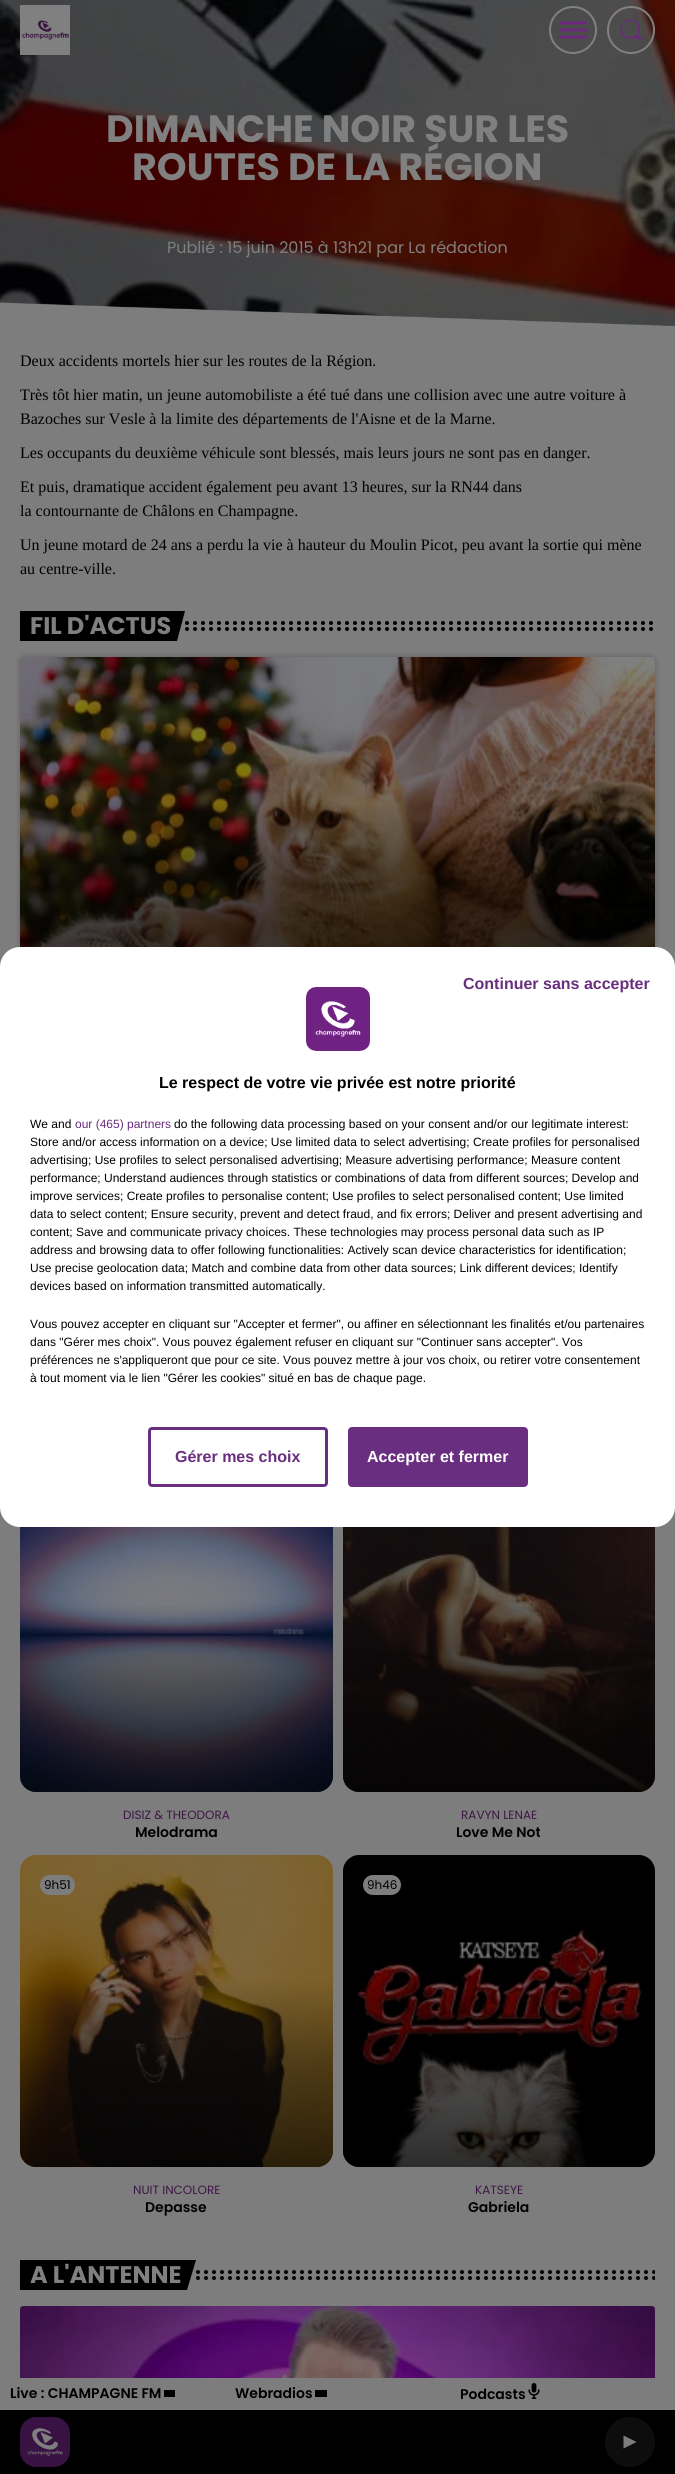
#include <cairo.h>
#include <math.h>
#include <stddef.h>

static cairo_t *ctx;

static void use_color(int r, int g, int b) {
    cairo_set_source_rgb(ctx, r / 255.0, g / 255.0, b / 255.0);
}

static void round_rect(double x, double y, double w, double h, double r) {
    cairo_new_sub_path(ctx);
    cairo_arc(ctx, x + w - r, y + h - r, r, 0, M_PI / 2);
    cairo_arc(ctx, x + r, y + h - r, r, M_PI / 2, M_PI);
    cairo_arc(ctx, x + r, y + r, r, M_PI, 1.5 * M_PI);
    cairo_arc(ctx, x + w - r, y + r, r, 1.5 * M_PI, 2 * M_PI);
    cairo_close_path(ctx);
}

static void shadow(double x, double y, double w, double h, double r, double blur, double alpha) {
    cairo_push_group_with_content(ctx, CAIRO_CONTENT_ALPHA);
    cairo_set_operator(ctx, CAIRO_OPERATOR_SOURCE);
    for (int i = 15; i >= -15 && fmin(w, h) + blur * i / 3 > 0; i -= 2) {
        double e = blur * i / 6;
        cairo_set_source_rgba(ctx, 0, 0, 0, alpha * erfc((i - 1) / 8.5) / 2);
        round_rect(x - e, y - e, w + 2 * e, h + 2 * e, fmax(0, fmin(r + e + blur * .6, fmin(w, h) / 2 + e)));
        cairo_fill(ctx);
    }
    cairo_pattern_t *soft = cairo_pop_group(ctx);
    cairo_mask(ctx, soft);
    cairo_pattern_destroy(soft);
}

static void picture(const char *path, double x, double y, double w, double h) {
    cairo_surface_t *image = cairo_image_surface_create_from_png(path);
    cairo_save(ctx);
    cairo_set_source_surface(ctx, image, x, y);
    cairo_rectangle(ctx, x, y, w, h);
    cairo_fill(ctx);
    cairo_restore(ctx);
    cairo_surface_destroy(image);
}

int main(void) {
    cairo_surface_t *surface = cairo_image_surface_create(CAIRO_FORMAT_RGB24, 675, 2474);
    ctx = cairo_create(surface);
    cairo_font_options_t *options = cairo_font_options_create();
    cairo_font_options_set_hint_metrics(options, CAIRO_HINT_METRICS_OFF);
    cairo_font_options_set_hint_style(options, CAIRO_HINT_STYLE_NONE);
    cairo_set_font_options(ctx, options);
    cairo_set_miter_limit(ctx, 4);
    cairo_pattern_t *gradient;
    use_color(125, 125, 125);
    cairo_paint(ctx);
    picture("img1.png", 0, 0, 675, 329);
    cairo_select_font_face(ctx, "Poppins", CAIRO_FONT_SLANT_NORMAL, CAIRO_FONT_WEIGHT_BOLD);
    cairo_set_font_size(ctx, 38);
    use_color(128, 128, 128);
    cairo_move_to(ctx, 106, 142);
    cairo_show_text(ctx, "DIMANCHE NOIR SUR LES");
    cairo_move_to(ctx, 132, 180);
    cairo_show_text(ctx, "ROUTES DE LA RÉGION");
    cairo_select_font_face(ctx, "Poppins", CAIRO_FONT_SLANT_NORMAL, CAIRO_FONT_WEIGHT_NORMAL);
    cairo_set_font_size(ctx, 16);
    cairo_move_to(ctx, 167, 253);
    cairo_show_text(ctx, "Publié : 15 juin 2015 à 13h21 par La rédaction");
    picture("img2.png", 0, 302, 675, 27);
    cairo_select_font_face(ctx, "Liberation Serif", CAIRO_FONT_SLANT_NORMAL, CAIRO_FONT_WEIGHT_NORMAL);
    use_color(0, 0, 0);
    cairo_move_to(ctx, 20, 366);
    cairo_show_text(ctx, "Deux accidents mortels hier sur les routes de la Région.");
    cairo_move_to(ctx, 20, 400);
    cairo_show_text(ctx, "Très tôt hier matin, un jeune automobiliste a été tué dans une collision avec une autre voiture à");
    cairo_move_to(ctx, 20, 424);
    cairo_show_text(ctx, "Bazoches sur Vesle à la limite des départements de l'Aisne et de la Marne.");
    cairo_move_to(ctx, 20, 458);
    cairo_show_text(ctx, "Les occupants du deuxième véhicule sont blessés, mais leurs jours ne sont pas en danger.");
    cairo_move_to(ctx, 20, 492);
    cairo_show_text(ctx, "Et puis, dramatique accident également peu avant 13 heures, sur la RN44 dans");
    cairo_move_to(ctx, 20, 516);
    cairo_show_text(ctx, "la contournante de Châlons en Champagne.");
    cairo_move_to(ctx, 20, 550);
    cairo_show_text(ctx, "Un jeune motard de 24 ans a perdu la vie à hauteur du Moulin Picot, peu avant la sortie qui mène");
    cairo_move_to(ctx, 20, 574);
    cairo_show_text(ctx, "au centre-ville.");
    cairo_save(ctx);
    cairo_rectangle(ctx, 20, 611, 171, 30);
    cairo_clip(ctx);
    cairo_new_path(ctx);
    cairo_move_to(ctx, 14, 611);
    cairo_line_to(ctx, 185, 611);
    cairo_line_to(ctx, 177, 641);
    cairo_line_to(ctx, 6, 641);
    cairo_close_path(ctx);
    cairo_fill(ctx);
    cairo_restore(ctx);
    cairo_select_font_face(ctx, "Poppins", CAIRO_FONT_SLANT_NORMAL, CAIRO_FONT_WEIGHT_BOLD);
    cairo_set_font_size(ctx, 24);
    use_color(128, 128, 128);
    cairo_move_to(ctx, 30, 634);
    cairo_show_text(ctx, "FIL D'ACTUS");
    cairo_new_path(ctx);
    cairo_move_to(ctx, 187, 623);
    cairo_line_to(ctx, 655, 623);
    use_color(0, 0, 0);
    cairo_set_line_width(ctx, 4);
    cairo_set_line_cap(ctx, CAIRO_LINE_CAP_ROUND);
    cairo_set_dash(ctx, (double[]){0, 8}, 2, 0);
    cairo_stroke(ctx);
    cairo_new_path(ctx);
    cairo_move_to(ctx, 187, 629);
    cairo_line_to(ctx, 655, 629);
    cairo_stroke(ctx);
    use_color(0, 0, 0);
    shadow(20, 657, 635, 358, 4, 3, 0.25);
    picture("img3.png", 20, 657, 635, 290);
    gradient = cairo_pattern_create_linear(338, 657, 338, 1015);
    cairo_pattern_add_color_stop_rgba(gradient, 0, 0, 0, 0, 0);
    cairo_pattern_add_color_stop_rgba(gradient, 0.4, 0, 0, 0, 0);
    cairo_pattern_add_color_stop_rgba(gradient, 0.65, 0, 0, 0, 0.34);
    cairo_pattern_add_color_stop_rgba(gradient, 1, 0, 0, 0, 0.65);
    cairo_set_source(ctx, gradient);
    cairo_pattern_destroy(gradient);
    cairo_rectangle(ctx, 20, 806, 635, 141);
    cairo_fill(ctx);
    picture("img4.png", 20, 1527, 313, 265);
    gradient = cairo_pattern_create_linear(176, 1479, 177, 1792);
    cairo_pattern_add_color_stop_rgba(gradient, 0, 0, 0, 0, 0);
    cairo_pattern_add_color_stop_rgba(gradient, 0.4, 0, 0, 0, 0);
    cairo_pattern_add_color_stop_rgba(gradient, 0.65, 0, 0, 0, 0.34);
    cairo_pattern_add_color_stop_rgba(gradient, 1, 0, 0, 0, 0.65);
    cairo_set_source(ctx, gradient);
    cairo_pattern_destroy(gradient);
    round_rect(20, 1479, 313, 313, 16);
    cairo_fill(ctx);
    cairo_select_font_face(ctx, "Poppins", CAIRO_FONT_SLANT_NORMAL, CAIRO_FONT_WEIGHT_NORMAL);
    cairo_set_font_size(ctx, 12);
    use_color(62, 22, 69);
    cairo_move_to(ctx, 123, 1819);
    cairo_show_text(ctx, "DISIZ & THEODORA");
    cairo_select_font_face(ctx, "Poppins SemiBold", CAIRO_FONT_SLANT_NORMAL, CAIRO_FONT_WEIGHT_NORMAL);
    cairo_set_font_size(ctx, 14);
    use_color(0, 0, 0);
    cairo_move_to(ctx, 135, 1837);
    cairo_show_text(ctx, "Melodrama");
    picture("img5.png", 343, 1527, 312, 265);
    gradient = cairo_pattern_create_linear(499, 1479, 499, 1792);
    cairo_pattern_add_color_stop_rgba(gradient, 0, 0, 0, 0, 0);
    cairo_pattern_add_color_stop_rgba(gradient, 0.4, 0, 0, 0, 0);
    cairo_pattern_add_color_stop_rgba(gradient, 0.65, 0, 0, 0, 0.34);
    cairo_pattern_add_color_stop_rgba(gradient, 1, 0, 0, 0, 0.65);
    cairo_set_source(ctx, gradient);
    cairo_pattern_destroy(gradient);
    round_rect(343, 1479, 312, 313, 16);
    cairo_fill(ctx);
    cairo_select_font_face(ctx, "Poppins", CAIRO_FONT_SLANT_NORMAL, CAIRO_FONT_WEIGHT_NORMAL);
    cairo_set_font_size(ctx, 12);
    use_color(62, 22, 69);
    cairo_move_to(ctx, 461, 1819);
    cairo_show_text(ctx, "RAVYN LENAE");
    cairo_select_font_face(ctx, "Poppins SemiBold", CAIRO_FONT_SLANT_NORMAL, CAIRO_FONT_WEIGHT_NORMAL);
    cairo_set_font_size(ctx, 14);
    use_color(0, 0, 0);
    cairo_move_to(ctx, 456, 1837);
    cairo_show_text(ctx, "Love Me Not");
    picture("img6.png", 20, 1855, 313, 312);
    gradient = cairo_pattern_create_linear(176, 1855, 177, 2167);
    cairo_pattern_add_color_stop_rgba(gradient, 0, 0, 0, 0, 0);
    cairo_pattern_add_color_stop_rgba(gradient, 0.4, 0, 0, 0, 0);
    cairo_pattern_add_color_stop_rgba(gradient, 0.65, 0, 0, 0, 0.34);
    cairo_pattern_add_color_stop_rgba(gradient, 1, 0, 0, 0, 0.65);
    cairo_set_source(ctx, gradient);
    cairo_pattern_destroy(gradient);
    round_rect(20, 1855, 313, 312, 16);
    cairo_fill(ctx);
    use_color(125, 125, 125);
    round_rect(40, 1875, 35, 20, 10);
    cairo_fill(ctx);
    cairo_select_font_face(ctx, "Poppins", CAIRO_FONT_SLANT_NORMAL, CAIRO_FONT_WEIGHT_NORMAL);
    cairo_set_font_size(ctx, 12);
    use_color(0, 0, 0);
    cairo_move_to(ctx, 44, 1889);
    cairo_show_text(ctx, "9h51");
    use_color(62, 22, 69);
    cairo_move_to(ctx, 133, 2194);
    cairo_show_text(ctx, "NUIT INCOLORE");
    cairo_select_font_face(ctx, "Poppins SemiBold", CAIRO_FONT_SLANT_NORMAL, CAIRO_FONT_WEIGHT_NORMAL);
    cairo_set_font_size(ctx, 14);
    use_color(0, 0, 0);
    cairo_move_to(ctx, 145, 2212);
    cairo_show_text(ctx, "Depasse");
    picture("img7.png", 343, 1855, 312, 312);
    gradient = cairo_pattern_create_linear(499, 1855, 499, 2167);
    cairo_pattern_add_color_stop_rgba(gradient, 0, 0, 0, 0, 0);
    cairo_pattern_add_color_stop_rgba(gradient, 0.4, 0, 0, 0, 0);
    cairo_pattern_add_color_stop_rgba(gradient, 0.65, 0, 0, 0, 0.34);
    cairo_pattern_add_color_stop_rgba(gradient, 1, 0, 0, 0, 0.65);
    cairo_set_source(ctx, gradient);
    cairo_pattern_destroy(gradient);
    round_rect(343, 1855, 312, 312, 16);
    cairo_fill(ctx);
    use_color(125, 125, 125);
    round_rect(363, 1875, 38, 20, 10);
    cairo_fill(ctx);
    cairo_select_font_face(ctx, "Poppins", CAIRO_FONT_SLANT_NORMAL, CAIRO_FONT_WEIGHT_NORMAL);
    cairo_set_font_size(ctx, 12);
    use_color(0, 0, 0);
    cairo_move_to(ctx, 367, 1889);
    cairo_show_text(ctx, "9h46");
    use_color(62, 22, 69);
    cairo_move_to(ctx, 475, 2194);
    cairo_show_text(ctx, "KATSEYE");
    cairo_select_font_face(ctx, "Poppins SemiBold", CAIRO_FONT_SLANT_NORMAL, CAIRO_FONT_WEIGHT_NORMAL);
    cairo_set_font_size(ctx, 14);
    use_color(0, 0, 0);
    cairo_move_to(ctx, 468, 2212);
    cairo_show_text(ctx, "Gabriela");
    cairo_save(ctx);
    cairo_rectangle(ctx, 20, 2260, 182, 30);
    cairo_clip(ctx);
    cairo_new_path(ctx);
    cairo_move_to(ctx, 14, 2260);
    cairo_line_to(ctx, 196, 2260);
    cairo_line_to(ctx, 187, 2290);
    cairo_line_to(ctx, 6, 2290);
    cairo_close_path(ctx);
    cairo_fill(ctx);
    cairo_restore(ctx);
    cairo_select_font_face(ctx, "Poppins", CAIRO_FONT_SLANT_NORMAL, CAIRO_FONT_WEIGHT_BOLD);
    cairo_set_font_size(ctx, 24);
    use_color(128, 128, 128);
    cairo_move_to(ctx, 30, 2283);
    cairo_show_text(ctx, "A L'ANTENNE");
    cairo_save(ctx);
    cairo_rectangle(ctx, 20, 2260, 635, 30);
    cairo_clip(ctx);
    cairo_new_path(ctx);
    cairo_move_to(ctx, 198, 2272);
    cairo_line_to(ctx, 655, 2272);
    use_color(0, 0, 0);
    cairo_stroke(ctx);
    cairo_new_path(ctx);
    cairo_move_to(ctx, 198, 2278);
    cairo_line_to(ctx, 655, 2278);
    cairo_stroke(ctx);
    cairo_restore(ctx);
    cairo_save(ctx);
    cairo_rectangle(ctx, 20, 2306, 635, 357);
    cairo_clip(ctx);
    use_color(0, 0, 0);
    shadow(20, 2306, 635, 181, 4, 3, 0.25);
    cairo_restore(ctx);
    picture("img8.png", 20, 2306, 635, 72);
    picture("img9.png", 20, 5, 50, 50);
    cairo_arc(ctx, 573, 30, 23, 0, 2 * M_PI);
    cairo_set_line_width(ctx, 2);
    cairo_set_line_cap(ctx, CAIRO_LINE_CAP_BUTT);
    cairo_set_dash(ctx, NULL, 0, 0);
    cairo_stroke(ctx);
    picture("img10.png", 559, 21, 28, 18);
    cairo_arc(ctx, 631, 30, 23, 0, 2 * M_PI);
    cairo_stroke(ctx);
    picture("img11.png", 620, 19, 22, 22);
    use_color(125, 125, 125);
    cairo_rectangle(ctx, 20, 2378, 635, 32);
    cairo_fill(ctx);
    cairo_select_font_face(ctx, "Poppins SemiBold", CAIRO_FONT_SLANT_NORMAL, CAIRO_FONT_WEIGHT_NORMAL);
    cairo_set_font_size(ctx, 14);
    use_color(0, 0, 0);
    cairo_move_to(ctx, 10, 2398);
    cairo_show_text(ctx, "Live : CHAMPAGNE FM");
    cairo_rectangle(ctx, 164, 2390, 11, 7);
    cairo_fill(ctx);
    cairo_move_to(ctx, 235, 2398);
    cairo_show_text(ctx, "Webradios");
    cairo_rectangle(ctx, 315, 2390, 12, 7);
    cairo_fill(ctx);
    cairo_move_to(ctx, 460, 2399);
    cairo_show_text(ctx, "Podcasts");
    picture("img12.png", 528, 2383, 12, 16);
    cairo_rectangle(ctx, 0, 2410, 675, 64);
    cairo_fill(ctx);
    picture("img13.png", 20, 2417, 50, 50);
    use_color(13, 13, 13);
    cairo_arc(ctx, 630, 2442, 25, 0, 2 * M_PI);
    cairo_fill(ctx);
    use_color(125, 125, 125);
    cairo_new_path(ctx);
    cairo_move_to(ctx, 636.5, 2442);
    cairo_line_to(ctx, 623.5, 2448.5);
    cairo_line_to(ctx, 623.5, 2435.5);
    cairo_close_path(ctx);
    cairo_fill(ctx);
    use_color(255, 255, 255);
    round_rect(0, 947, 675, 580, 20);
    cairo_fill(ctx);
    cairo_select_font_face(ctx, "Liberation Sans", CAIRO_FONT_SLANT_NORMAL, CAIRO_FONT_WEIGHT_BOLD);
    cairo_set_font_size(ctx, 16);
    use_color(105, 46, 127);
    cairo_move_to(ctx, 463, 989);
    cairo_show_text(ctx, "Continuer sans accepter");
    round_rect(149.5, 1428.5, 177, 57, 2.5);
    cairo_set_line_width(ctx, 3);
    cairo_stroke(ctx);
    cairo_move_to(ctx, 175, 1462);
    cairo_show_text(ctx, "Gérer mes choix");
    round_rect(349.5, 1428.5, 177, 57, 2.5);
    cairo_fill_preserve(ctx);
    cairo_stroke(ctx);
    use_color(255, 255, 255);
    cairo_move_to(ctx, 367, 1462);
    cairo_show_text(ctx, "Accepter et fermer");
    picture("img14.png", 306, 987, 64, 64);
    use_color(0, 0, 0);
    cairo_move_to(ctx, 159, 1088);
    cairo_show_text(ctx, "Le respect de votre vie privée est notre priorité");
    cairo_select_font_face(ctx, "Liberation Sans", CAIRO_FONT_SLANT_NORMAL, CAIRO_FONT_WEIGHT_NORMAL);
    cairo_set_font_size(ctx, 12);
    cairo_move_to(ctx, 30, 1128);
    cairo_show_text(ctx, "We and");
    use_color(105, 46, 127);
    cairo_move_to(ctx, 75, 1128);
    cairo_show_text(ctx, "our (465) partners");
    use_color(0, 0, 0);
    cairo_move_to(ctx, 174, 1128);
    cairo_show_text(ctx, "do the following data processing based on your consent and/or our legitimate interest:");
    cairo_move_to(ctx, 30, 1146);
    cairo_show_text(ctx, "Store and/or access information on a device; Use limited data to select advertising; Create profiles for personalised");
    cairo_move_to(ctx, 30, 1164);
    cairo_show_text(ctx, "advertising; Use profiles to select personalised advertising; Measure advertising performance; Measure content");
    cairo_move_to(ctx, 30, 1182);
    cairo_show_text(ctx, "performance; Understand audiences through statistics or combinations of data from different sources; Develop and");
    cairo_move_to(ctx, 30, 1200);
    cairo_show_text(ctx, "improve services; Create profiles to personalise content; Use profiles to select personalised content; Use limited");
    cairo_move_to(ctx, 30, 1218);
    cairo_show_text(ctx, "data to select content; Ensure security, prevent and detect fraud, and fix errors; Deliver and present advertising and");
    cairo_move_to(ctx, 30, 1236);
    cairo_show_text(ctx, "content; Save and communicate privacy choices. These technologies may process personal data such as IP");
    cairo_move_to(ctx, 30, 1254);
    cairo_show_text(ctx, "address and browsing data to offer following functionalities: Actively scan device characteristics for identification;");
    cairo_move_to(ctx, 30, 1272);
    cairo_show_text(ctx, "Use precise geolocation data; Match and combine data from other data sources; Link different devices; Identify");
    cairo_move_to(ctx, 30, 1290);
    cairo_show_text(ctx, "devices based on information transmitted automatically.");
    cairo_move_to(ctx, 30, 1328);
    cairo_show_text(ctx, "Vous pouvez accepter en cliquant sur \"Accepter et fermer\", ou affiner en sélectionnant les finalités et/ou partenaires");
    cairo_move_to(ctx, 30, 1346);
    cairo_show_text(ctx, "dans \"Gérer mes choix\". Vous pouvez également refuser en cliquant sur \"Continuer sans accepter\". Vos");
    cairo_move_to(ctx, 30, 1364);
    cairo_show_text(ctx, "préférences ne s'appliqueront que pour ce site. Vous pouvez mettre à jour vos choix, ou retirer votre consentement");
    cairo_move_to(ctx, 30, 1382);
    cairo_show_text(ctx, "à tout moment via le lien \"Gérer les cookies\" situé en bas de chaque page.");
    cairo_surface_write_to_png(surface, "result.png");
    cairo_font_options_destroy(options);
    cairo_destroy(ctx);
    cairo_surface_destroy(surface);
    return 0;
}
